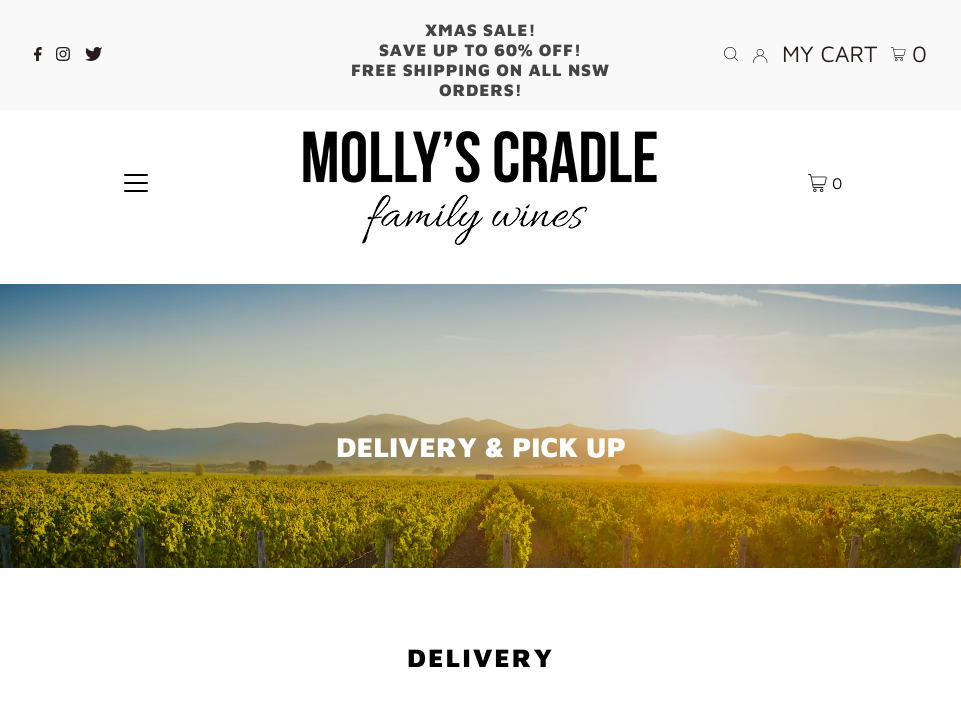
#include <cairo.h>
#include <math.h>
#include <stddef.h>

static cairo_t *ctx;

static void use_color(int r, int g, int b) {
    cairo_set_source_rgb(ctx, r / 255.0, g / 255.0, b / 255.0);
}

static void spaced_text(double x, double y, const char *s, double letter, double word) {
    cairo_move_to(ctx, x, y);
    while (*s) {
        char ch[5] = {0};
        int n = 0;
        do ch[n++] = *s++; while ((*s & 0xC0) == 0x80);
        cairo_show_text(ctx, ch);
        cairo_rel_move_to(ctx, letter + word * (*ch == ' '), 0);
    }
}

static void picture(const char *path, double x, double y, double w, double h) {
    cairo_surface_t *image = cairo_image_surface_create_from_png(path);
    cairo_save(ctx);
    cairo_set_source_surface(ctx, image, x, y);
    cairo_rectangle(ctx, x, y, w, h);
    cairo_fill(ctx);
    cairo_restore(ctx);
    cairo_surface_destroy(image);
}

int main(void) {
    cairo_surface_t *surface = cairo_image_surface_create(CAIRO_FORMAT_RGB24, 961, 726);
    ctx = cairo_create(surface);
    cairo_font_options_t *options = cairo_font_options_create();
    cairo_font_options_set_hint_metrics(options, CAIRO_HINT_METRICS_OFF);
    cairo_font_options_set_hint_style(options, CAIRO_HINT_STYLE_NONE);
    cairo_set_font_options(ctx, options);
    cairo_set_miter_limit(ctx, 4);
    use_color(255, 255, 255);
    cairo_paint(ctx);
    use_color(249, 249, 249);
    cairo_rectangle(ctx, 0, 0, 961, 110);
    cairo_fill(ctx);
    picture("img1.png", 34, 47, 8, 14);
    picture("img2.png", 56, 47, 14, 14);
    picture("img3.png", 85, 47, 17, 14);
    cairo_select_font_face(ctx, "Maven Pro Black", CAIRO_FONT_SLANT_NORMAL, CAIRO_FONT_WEIGHT_NORMAL);
    cairo_set_font_size(ctx, 17);
    use_color(69, 69, 69);
    spaced_text(425, 36, "XMAS SALE!", 0.85, 0);
    spaced_text(379, 56, "SAVE UP TO 60% OFF!", 0.85, 0);
    spaced_text(351, 76, "FREE SHIPPING ON ALL NSW", 0.85, 0);
    spaced_text(439, 96, "ORDERS!", 0.85, 0);
    picture("img4.png", 724, 47, 14, 14);
    picture("img5.png", 753, 49, 15, 14);
    cairo_select_font_face(ctx, "Maven Pro", CAIRO_FONT_SLANT_NORMAL, CAIRO_FONT_WEIGHT_NORMAL);
    cairo_set_font_size(ctx, 23);
    use_color(38, 28, 28);
    cairo_move_to(ctx, 782, 62);
    cairo_show_text(ctx, "MY CART");
    picture("img6.png", 891, 47, 15, 14);
    cairo_move_to(ctx, 912, 62);
    cairo_show_text(ctx, "0");
    picture("img7.png", 124, 174, 24, 18);
    picture("img8.png", 303, 131, 354, 114);
    picture("img9.png", 808, 174, 19, 18);
    cairo_set_font_size(ctx, 16);
    use_color(0, 0, 0);
    cairo_move_to(ctx, 832, 189);
    cairo_show_text(ctx, "0");
    picture("img10.png", 0, 284, 961, 284);
    cairo_select_font_face(ctx, "Maven Pro Black", CAIRO_FONT_SLANT_NORMAL, CAIRO_FONT_WEIGHT_NORMAL);
    cairo_set_font_size(ctx, 28);
    use_color(255, 255, 255);
    cairo_move_to(ctx, 336, 457);
    cairo_show_text(ctx, "DELIVERY & PICK UP");
    cairo_set_font_size(ctx, 26);
    use_color(0, 0, 0);
    spaced_text(407, 667, "DELIVERY", 2, 0);
    cairo_surface_write_to_png(surface, "result.png");
    cairo_font_options_destroy(options);
    cairo_destroy(ctx);
    cairo_surface_destroy(surface);
    return 0;
}
